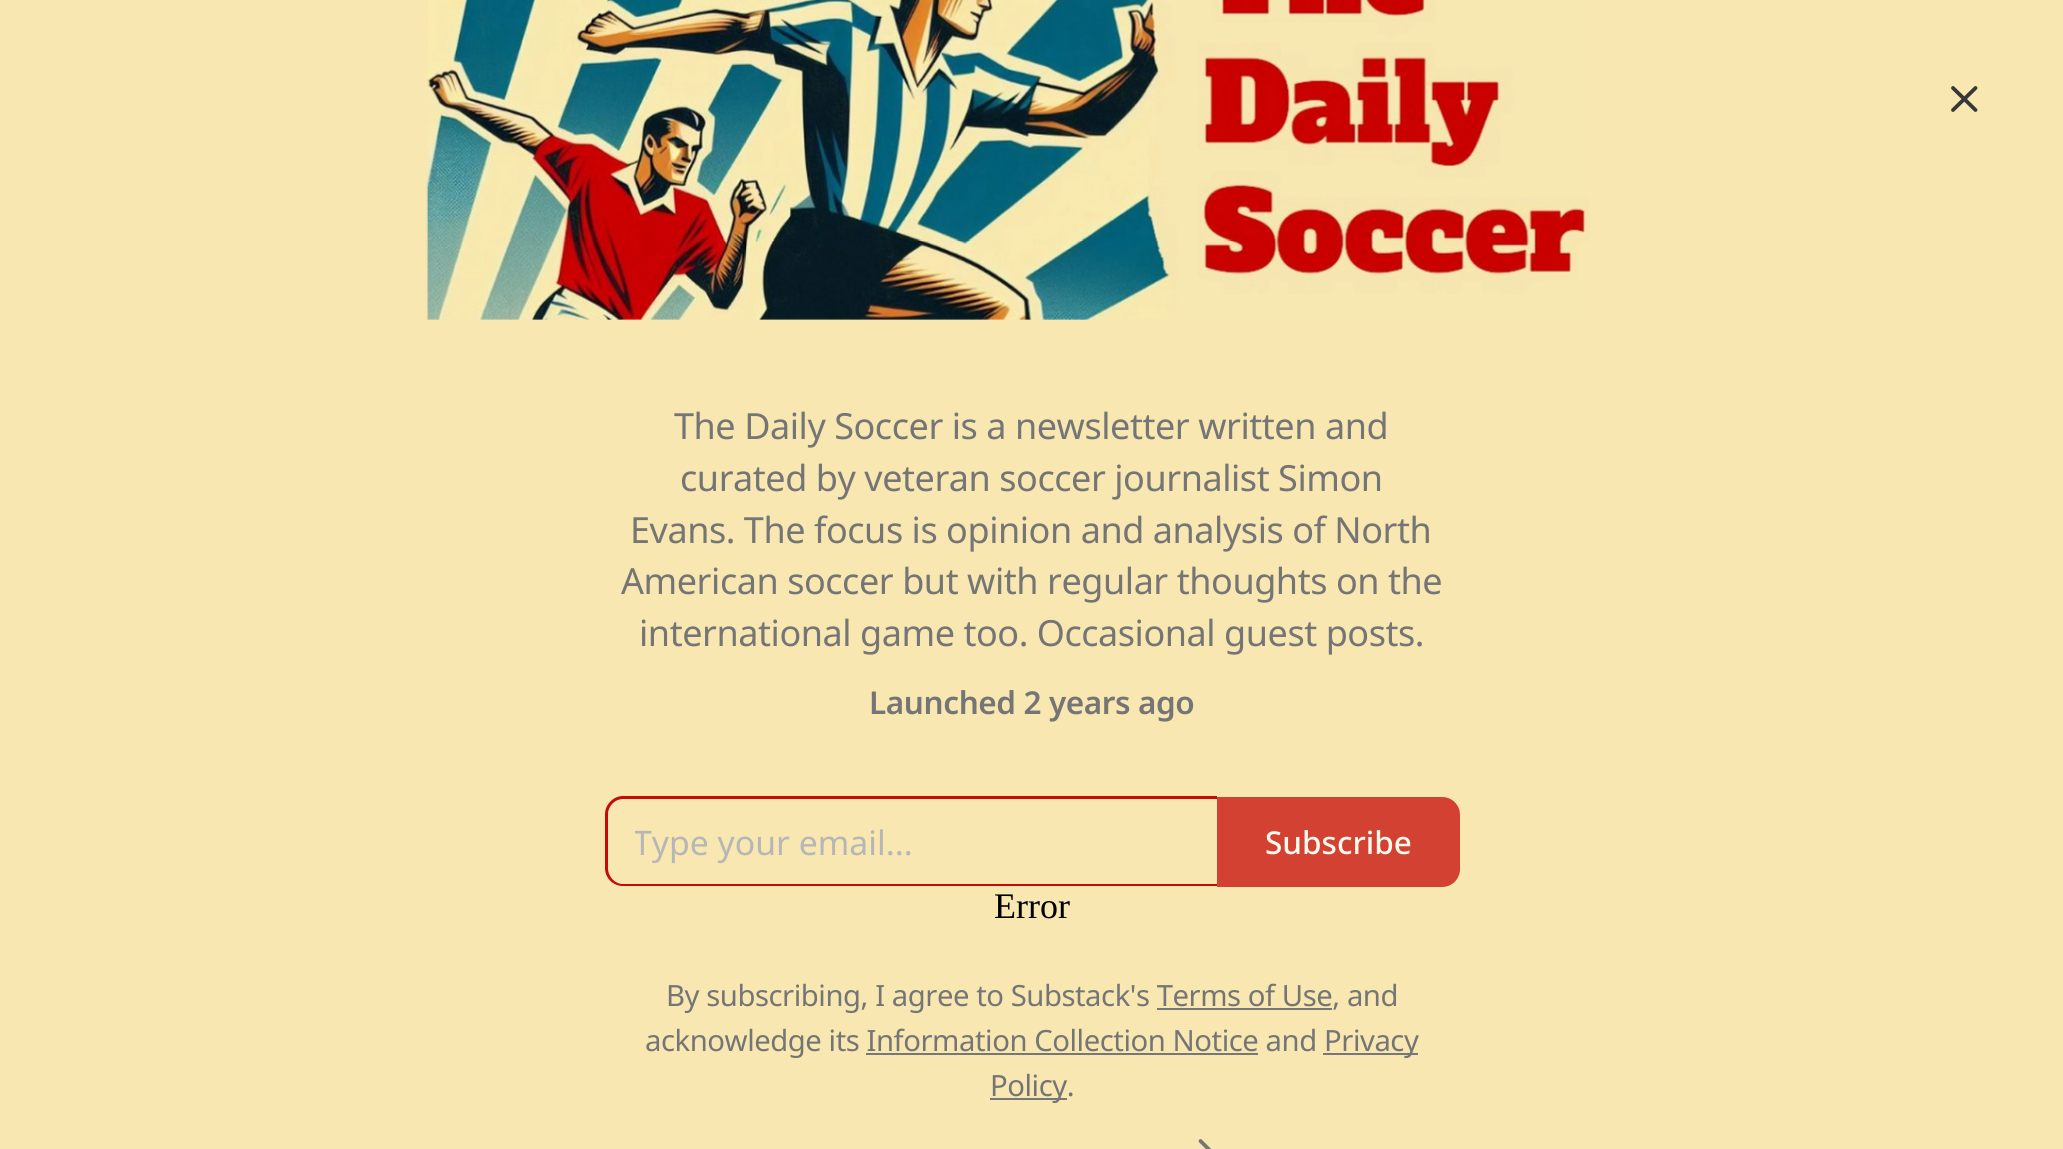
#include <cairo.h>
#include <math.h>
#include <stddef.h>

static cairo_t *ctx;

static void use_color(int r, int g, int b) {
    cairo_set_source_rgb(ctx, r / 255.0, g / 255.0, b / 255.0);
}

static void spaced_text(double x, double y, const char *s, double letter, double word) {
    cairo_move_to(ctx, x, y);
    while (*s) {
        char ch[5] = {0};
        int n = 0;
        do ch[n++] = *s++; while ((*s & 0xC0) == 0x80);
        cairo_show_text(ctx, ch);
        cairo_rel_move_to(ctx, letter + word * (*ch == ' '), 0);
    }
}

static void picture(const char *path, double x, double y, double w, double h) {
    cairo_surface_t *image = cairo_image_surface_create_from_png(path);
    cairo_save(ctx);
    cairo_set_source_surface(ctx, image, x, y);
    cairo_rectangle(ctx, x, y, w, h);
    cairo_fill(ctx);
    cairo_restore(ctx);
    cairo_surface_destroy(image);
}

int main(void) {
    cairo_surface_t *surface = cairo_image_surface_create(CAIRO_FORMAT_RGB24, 2063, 1149);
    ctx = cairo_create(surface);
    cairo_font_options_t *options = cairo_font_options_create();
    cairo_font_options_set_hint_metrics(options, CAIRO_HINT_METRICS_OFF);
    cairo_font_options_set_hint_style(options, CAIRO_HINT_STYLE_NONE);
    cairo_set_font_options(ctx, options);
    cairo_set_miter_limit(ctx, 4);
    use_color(248, 231, 177);
    cairo_paint(ctx);
    picture("img1.png", 426, 0, 1164, 320);
    cairo_new_path(ctx);
    cairo_move_to(ctx, 1975.5, 88);
    cairo_line_to(ctx, 1953, 110);
    cairo_move_to(ctx, 1953, 88);
    cairo_line_to(ctx, 1975.5, 110);
    use_color(54, 55, 55);
    cairo_set_line_width(ctx, 3.8);
    cairo_set_line_cap(ctx, CAIRO_LINE_CAP_ROUND);
    cairo_set_line_join(ctx, CAIRO_LINE_JOIN_ROUND);
    cairo_stroke(ctx);
    cairo_select_font_face(ctx, "Noto Sans", CAIRO_FONT_SLANT_NORMAL, CAIRO_FONT_WEIGHT_NORMAL);
    cairo_set_font_size(ctx, 36);
    use_color(117, 117, 117);
    spaced_text(674, 439, "The Daily Soccer is a newsletter written and", -0.45, 0);
    spaced_text(680, 491, "curated by veteran soccer journalist Simon", -0.45, 0);
    spaced_text(630, 543, "Evans. The focus is opinion and analysis of North", -0.45, 0);
    spaced_text(621, 594, "American soccer but with regular thoughts on the", -0.45, 0);
    spaced_text(639, 646, "international game too. Occasional guest posts.", -0.45, 0);
    cairo_select_font_face(ctx, "Noto Sans SemiBold", CAIRO_FONT_SLANT_NORMAL, CAIRO_FONT_WEIGHT_NORMAL);
    cairo_set_font_size(ctx, 31.5);
    spaced_text(869, 714, "Launched 2 years ago", -0.4, 0);
    use_color(197, 10, 8);
    cairo_set_fill_rule(ctx, CAIRO_FILL_RULE_EVEN_ODD);
    cairo_new_path(ctx);
    cairo_move_to(ctx, 623, 796);
    cairo_line_to(ctx, 1217, 796);
    cairo_line_to(ctx, 1217, 886);
    cairo_line_to(ctx, 623, 886);
    cairo_curve_to(ctx, 613, 886, 605, 878, 605, 868);
    cairo_line_to(ctx, 605, 814);
    cairo_curve_to(ctx, 605, 805, 613, 796, 623, 796);
    cairo_close_path(ctx);
    cairo_move_to(ctx, 623, 799);
    cairo_line_to(ctx, 1217, 799);
    cairo_line_to(ctx, 1217, 884);
    cairo_line_to(ctx, 623, 884);
    cairo_curve_to(ctx, 615, 884, 608, 877, 608, 868);
    cairo_line_to(ctx, 608, 814);
    cairo_curve_to(ctx, 608, 806, 615, 799, 623, 799);
    cairo_close_path(ctx);
    cairo_fill(ctx);
    cairo_save(ctx);
    cairo_set_fill_rule(ctx, CAIRO_FILL_RULE_WINDING);
    cairo_rectangle(ctx, 635, 819, 555, 45);
    cairo_clip(ctx);
    cairo_select_font_face(ctx, "Noto Sans", CAIRO_FONT_SLANT_NORMAL, CAIRO_FONT_WEIGHT_NORMAL);
    cairo_set_font_size(ctx, 33.75);
    use_color(182, 182, 182);
    cairo_move_to(ctx, 633, 855);
    cairo_show_text(ctx, "Type your email...");
    cairo_restore(ctx);
    use_color(210, 65, 50);
    cairo_new_path(ctx);
    cairo_move_to(ctx, 1218, 798);
    cairo_line_to(ctx, 1442, 798);
    cairo_curve_to(ctx, 1451.5, 798, 1459, 805.5, 1459, 815);
    cairo_line_to(ctx, 1459, 869);
    cairo_curve_to(ctx, 1459, 878.5, 1451.5, 886, 1442, 886);
    cairo_line_to(ctx, 1218, 886);
    cairo_close_path(ctx);
    cairo_fill_preserve(ctx);
    cairo_set_line_width(ctx, 2);
    cairo_set_line_cap(ctx, CAIRO_LINE_CAP_BUTT);
    cairo_set_line_join(ctx, CAIRO_LINE_JOIN_MITER);
    cairo_stroke(ctx);
    cairo_select_font_face(ctx, "Noto Sans Medium", CAIRO_FONT_SLANT_NORMAL, CAIRO_FONT_WEIGHT_NORMAL);
    use_color(253, 249, 236);
    cairo_move_to(ctx, 1265, 854);
    cairo_show_text(ctx, "Subscribe");
    cairo_select_font_face(ctx, "Liberation Serif", CAIRO_FONT_SLANT_NORMAL, CAIRO_FONT_WEIGHT_NORMAL);
    cairo_set_font_size(ctx, 36);
    use_color(0, 0, 0);
    cairo_move_to(ctx, 994, 918);
    cairo_show_text(ctx, "Error");
    cairo_select_font_face(ctx, "Noto Sans", CAIRO_FONT_SLANT_NORMAL, CAIRO_FONT_WEIGHT_NORMAL);
    cairo_set_font_size(ctx, 29.25);
    use_color(117, 117, 117);
    spaced_text(666, 1006, "By subscribing, I agree to Substack's Terms of Use, and", -0.45, 0);
    use_color(119, 119, 119);
    cairo_rectangle(ctx, 1157, 1008, 175, 2);
    cairo_fill(ctx);
    use_color(117, 117, 117);
    spaced_text(645, 1051, "acknowledge its Information Collection Notice and", -0.45, 0);
    use_color(119, 119, 119);
    cairo_rectangle(ctx, 1323, 1053, 95, 2);
    cairo_fill(ctx);
    use_color(117, 117, 117);
    spaced_text(1324, 1051, "Privacy", -0.45, 0);
    use_color(119, 119, 119);
    cairo_rectangle(ctx, 866, 1053, 392, 2);
    cairo_fill(ctx);
    cairo_rectangle(ctx, 990, 1098, 77, 2);
    cairo_fill(ctx);
    use_color(117, 117, 117);
    spaced_text(990, 1096, "Policy.", -0.45, 0);
    cairo_new_path(ctx);
    cairo_move_to(ctx, 1200.5, 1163);
    cairo_line_to(ctx, 1211.5, 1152);
    cairo_line_to(ctx, 1200.5, 1141);
    cairo_set_line_width(ctx, 3.8);
    cairo_set_line_cap(ctx, CAIRO_LINE_CAP_ROUND);
    cairo_set_line_join(ctx, CAIRO_LINE_JOIN_ROUND);
    cairo_stroke(ctx);
    cairo_surface_write_to_png(surface, "result.png");
    cairo_font_options_destroy(options);
    cairo_destroy(ctx);
    cairo_surface_destroy(surface);
    return 0;
}
